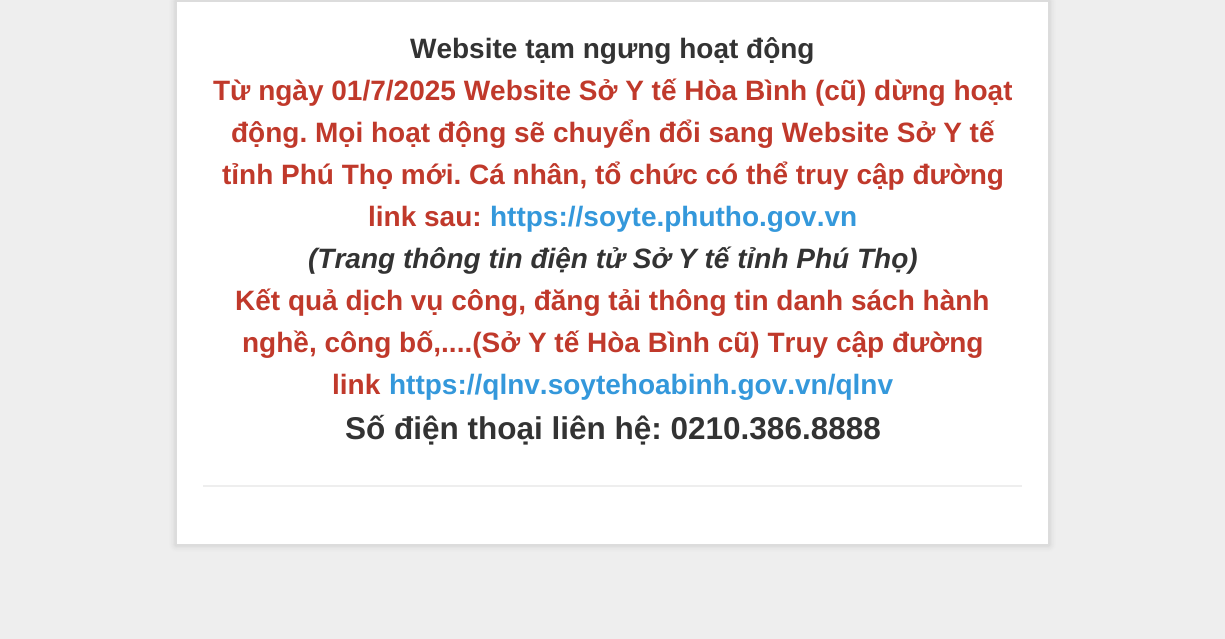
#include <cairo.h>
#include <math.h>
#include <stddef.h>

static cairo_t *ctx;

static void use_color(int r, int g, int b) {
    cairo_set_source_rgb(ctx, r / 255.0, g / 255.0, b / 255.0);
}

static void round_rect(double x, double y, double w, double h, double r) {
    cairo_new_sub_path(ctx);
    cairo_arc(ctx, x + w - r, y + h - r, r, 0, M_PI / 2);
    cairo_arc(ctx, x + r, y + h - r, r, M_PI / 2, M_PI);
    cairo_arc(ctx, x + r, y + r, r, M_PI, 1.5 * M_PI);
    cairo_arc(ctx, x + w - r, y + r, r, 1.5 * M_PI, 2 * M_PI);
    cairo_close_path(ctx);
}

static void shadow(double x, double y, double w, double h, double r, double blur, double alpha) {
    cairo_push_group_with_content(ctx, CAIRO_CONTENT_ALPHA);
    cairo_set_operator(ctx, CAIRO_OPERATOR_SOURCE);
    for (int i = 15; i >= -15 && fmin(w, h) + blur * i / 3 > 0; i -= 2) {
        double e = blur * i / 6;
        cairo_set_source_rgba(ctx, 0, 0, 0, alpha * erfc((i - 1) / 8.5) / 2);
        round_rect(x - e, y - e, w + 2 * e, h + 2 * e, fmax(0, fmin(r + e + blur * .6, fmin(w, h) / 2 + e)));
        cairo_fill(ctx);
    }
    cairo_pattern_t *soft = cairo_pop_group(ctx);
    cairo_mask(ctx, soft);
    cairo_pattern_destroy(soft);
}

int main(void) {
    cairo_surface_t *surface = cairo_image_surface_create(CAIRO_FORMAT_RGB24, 1225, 639);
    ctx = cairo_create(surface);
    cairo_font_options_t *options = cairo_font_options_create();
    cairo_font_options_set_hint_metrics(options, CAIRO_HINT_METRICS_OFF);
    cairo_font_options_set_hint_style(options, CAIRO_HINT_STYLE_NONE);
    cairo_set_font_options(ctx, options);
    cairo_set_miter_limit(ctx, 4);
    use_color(238, 238, 238);
    cairo_paint(ctx);
    use_color(0, 0, 0);
    shadow(175, 0, 875, 546, 0, 3.5, 0.15);
    use_color(255, 255, 255);
    cairo_rectangle(ctx, 176, 1, 873, 544);
    cairo_fill_preserve(ctx);
    use_color(220, 220, 220);
    cairo_stroke(ctx);
    cairo_select_font_face(ctx, "Liberation Sans", CAIRO_FONT_SLANT_NORMAL, CAIRO_FONT_WEIGHT_BOLD);
    cairo_set_font_size(ctx, 28);
    use_color(51, 51, 51);
    cairo_move_to(ctx, 410, 58);
    cairo_show_text(ctx, "Website tạm ngưng hoạt động");
    use_color(192, 57, 43);
    cairo_move_to(ctx, 213, 100);
    cairo_show_text(ctx, "Từ ngày 01/7/2025 Website Sở Y tế Hòa Bình (cũ) dừng hoạt");
    cairo_move_to(ctx, 231, 142);
    cairo_show_text(ctx, "động. Mọi hoạt động sẽ chuyển đổi sang Website Sở Y tế");
    cairo_move_to(ctx, 222, 184);
    cairo_show_text(ctx, "tỉnh Phú Thọ mới. Cá nhân, tổ chức có thể truy cập đường");
    cairo_move_to(ctx, 368, 226);
    cairo_show_text(ctx, "link sau:");
    use_color(52, 152, 219);
    cairo_move_to(ctx, 490, 226);
    cairo_show_text(ctx, "https://soyte.phutho.gov.vn");
    cairo_select_font_face(ctx, "Liberation Sans", CAIRO_FONT_SLANT_ITALIC, CAIRO_FONT_WEIGHT_BOLD);
    use_color(51, 51, 51);
    cairo_move_to(ctx, 308, 268);
    cairo_show_text(ctx, "(Trang thông tin điện tử Sở Y tế tỉnh Phú Thọ)");
    cairo_select_font_face(ctx, "Liberation Sans", CAIRO_FONT_SLANT_NORMAL, CAIRO_FONT_WEIGHT_BOLD);
    use_color(192, 57, 43);
    cairo_move_to(ctx, 235, 310);
    cairo_show_text(ctx, "Kết quả dịch vụ công, đăng tải thông tin danh sách hành");
    cairo_move_to(ctx, 242, 352);
    cairo_show_text(ctx, "nghề, công bố,....(Sở Y tế Hòa Bình cũ) Truy cập đường");
    cairo_move_to(ctx, 332, 394);
    cairo_show_text(ctx, "link");
    use_color(52, 152, 219);
    cairo_move_to(ctx, 389, 394);
    cairo_show_text(ctx, "https://qlnv.soytehoabinh.gov.vn/qlnv");
    cairo_set_font_size(ctx, 31.5);
    use_color(51, 51, 51);
    cairo_move_to(ctx, 345, 439);
    cairo_show_text(ctx, "Số điện thoại liên hệ: 0210.386.8888");
    use_color(238, 238, 238);
    cairo_rectangle(ctx, 203, 485, 819, 2);
    cairo_fill(ctx);
    cairo_surface_write_to_png(surface, "result.png");
    cairo_font_options_destroy(options);
    cairo_destroy(ctx);
    cairo_surface_destroy(surface);
    return 0;
}
